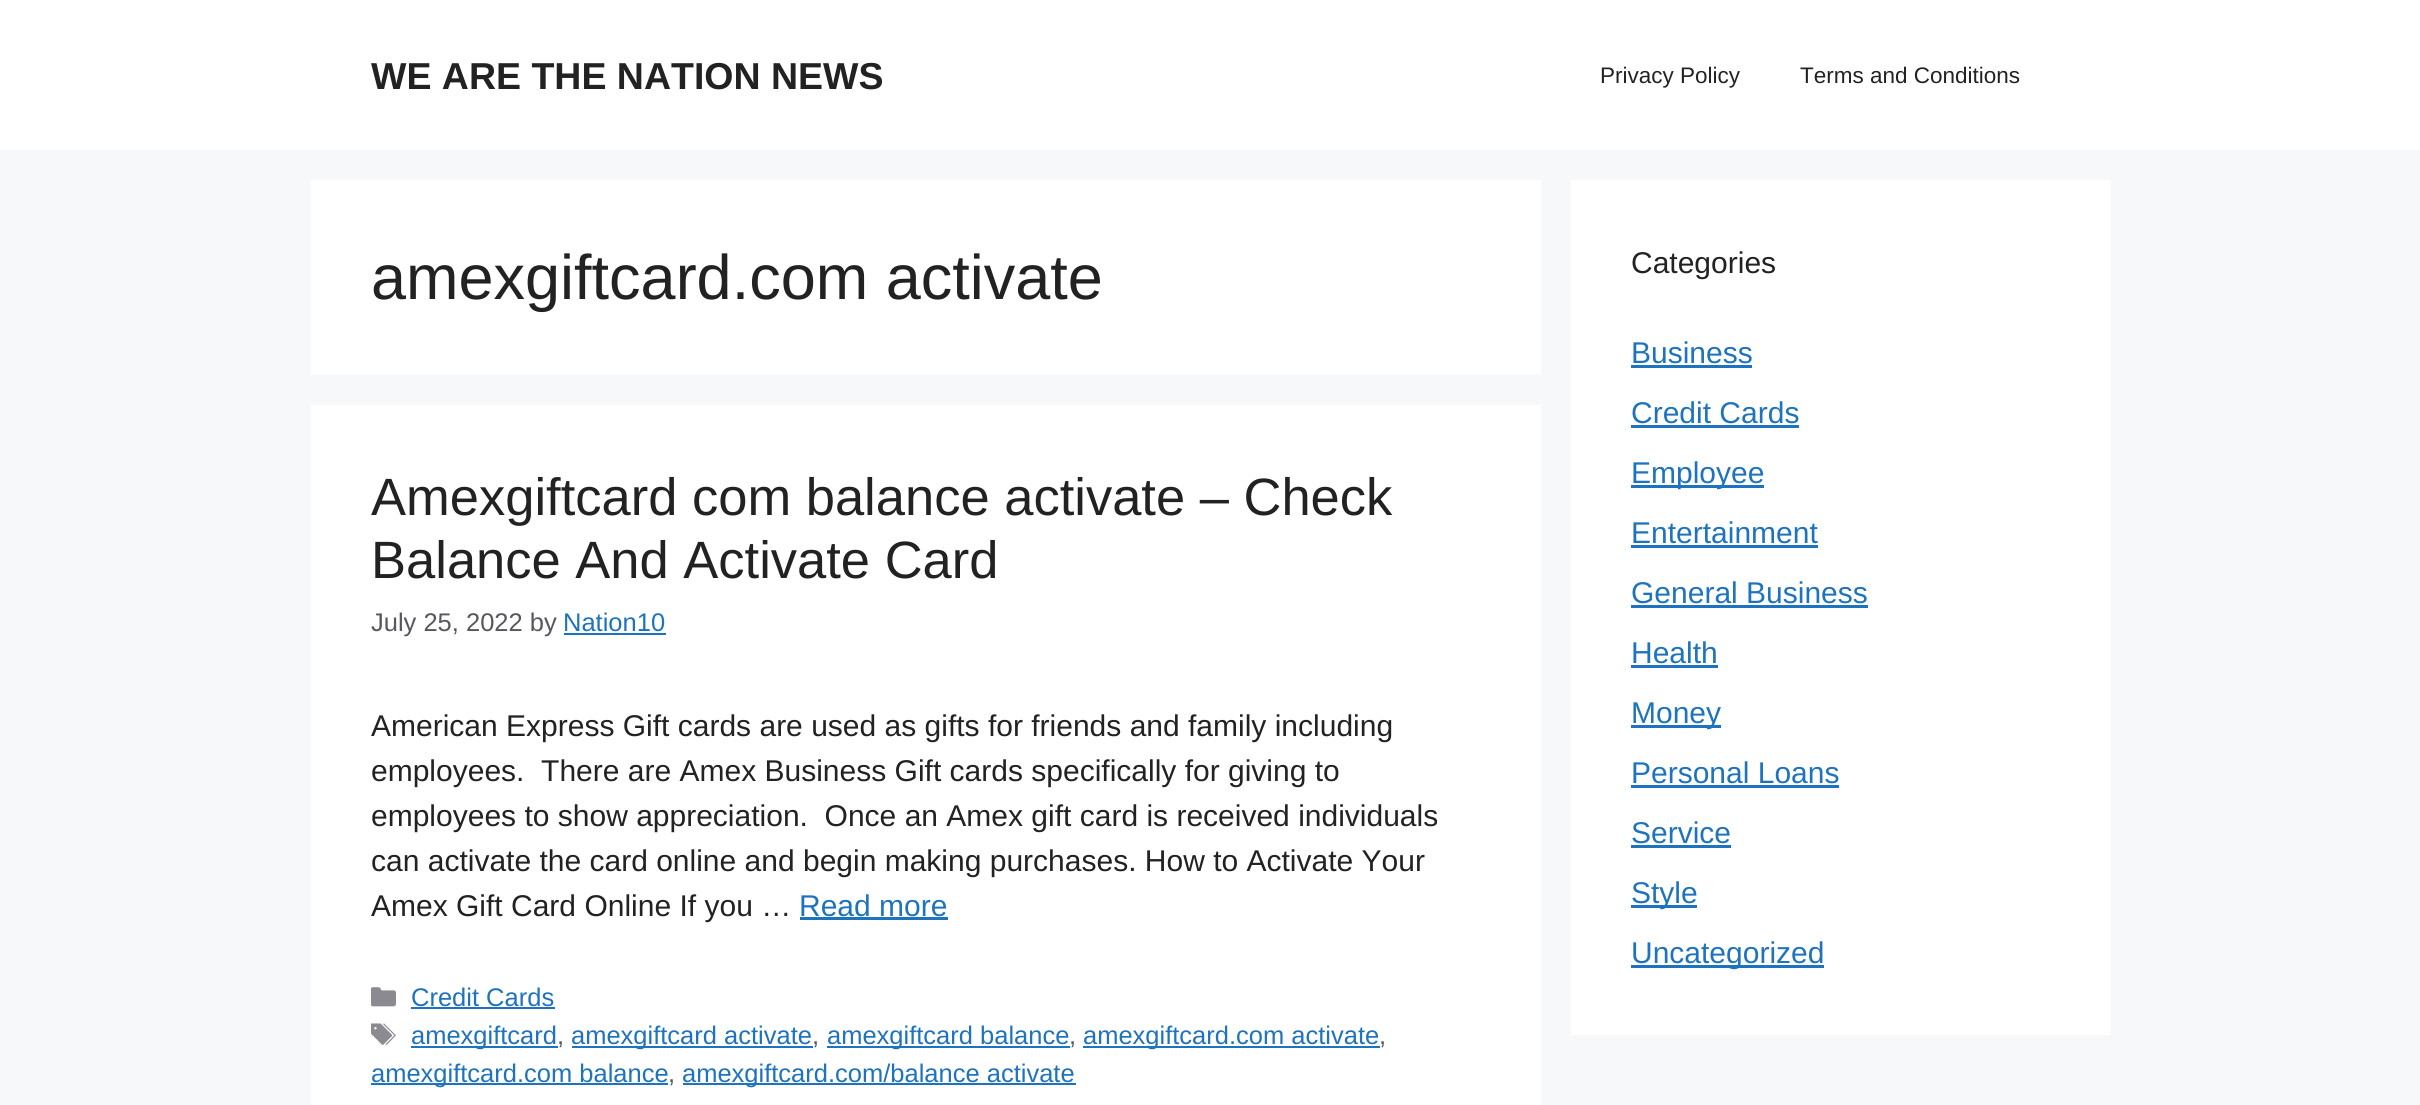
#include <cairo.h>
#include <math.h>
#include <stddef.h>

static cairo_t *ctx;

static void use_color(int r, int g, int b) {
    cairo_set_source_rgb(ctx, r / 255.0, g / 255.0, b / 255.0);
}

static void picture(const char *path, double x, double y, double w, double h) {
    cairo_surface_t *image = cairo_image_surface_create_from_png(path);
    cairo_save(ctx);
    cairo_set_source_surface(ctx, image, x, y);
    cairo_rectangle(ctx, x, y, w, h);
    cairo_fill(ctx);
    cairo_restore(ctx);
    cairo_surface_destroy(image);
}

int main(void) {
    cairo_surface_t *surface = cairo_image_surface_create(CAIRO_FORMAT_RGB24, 2420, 1105);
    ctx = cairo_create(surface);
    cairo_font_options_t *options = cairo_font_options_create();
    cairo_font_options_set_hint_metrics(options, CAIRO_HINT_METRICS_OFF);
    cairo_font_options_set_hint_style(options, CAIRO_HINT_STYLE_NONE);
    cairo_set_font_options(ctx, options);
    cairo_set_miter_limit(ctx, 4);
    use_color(247, 248, 249);
    cairo_paint(ctx);
    use_color(255, 255, 255);
    cairo_rectangle(ctx, 0, 0, 2420, 150);
    cairo_fill(ctx);
    cairo_select_font_face(ctx, "Liberation Sans", CAIRO_FONT_SLANT_NORMAL, CAIRO_FONT_WEIGHT_BOLD);
    cairo_set_font_size(ctx, 37.5);
    use_color(34, 34, 34);
    cairo_move_to(ctx, 371, 89);
    cairo_show_text(ctx, "WE ARE THE NATION NEWS");
    cairo_select_font_face(ctx, "Liberation Sans", CAIRO_FONT_SLANT_NORMAL, CAIRO_FONT_WEIGHT_NORMAL);
    cairo_set_font_size(ctx, 22.5);
    cairo_move_to(ctx, 1600, 83);
    cairo_show_text(ctx, "Privacy Policy");
    cairo_move_to(ctx, 1800, 83);
    cairo_show_text(ctx, "Terms and Conditions");
    use_color(255, 255, 255);
    cairo_rectangle(ctx, 311, 180, 1230, 195);
    cairo_fill(ctx);
    cairo_set_font_size(ctx, 63);
    use_color(34, 34, 34);
    cairo_move_to(ctx, 371, 299);
    cairo_show_text(ctx, "amexgiftcard.com activate");
    use_color(255, 255, 255);
    cairo_rectangle(ctx, 311, 405, 1230, 700);
    cairo_fill(ctx);
    cairo_set_font_size(ctx, 52.5);
    use_color(34, 34, 34);
    cairo_move_to(ctx, 371, 515);
    cairo_show_text(ctx, "Amexgiftcard com balance activate – Check");
    cairo_move_to(ctx, 371, 578);
    cairo_show_text(ctx, "Balance And Activate Card");
    cairo_set_font_size(ctx, 25.5);
    use_color(87, 87, 96);
    cairo_move_to(ctx, 371, 631);
    cairo_show_text(ctx, "July 25, 2022 by");
    use_color(30, 115, 190);
    cairo_move_to(ctx, 563, 631);
    cairo_show_text(ctx, "Nation10");
    cairo_rectangle(ctx, 564, 633, 102, 2);
    cairo_fill(ctx);
    cairo_set_font_size(ctx, 30);
    use_color(34, 34, 34);
    cairo_move_to(ctx, 371, 736);
    cairo_show_text(ctx, "American Express Gift cards are used as gifts for friends and family including");
    cairo_move_to(ctx, 371, 781);
    cairo_show_text(ctx, "employees.  There are Amex Business Gift cards specifically for giving to");
    cairo_move_to(ctx, 371, 826);
    cairo_show_text(ctx, "employees to show appreciation.  Once an Amex gift card is received individuals");
    cairo_move_to(ctx, 371, 871);
    cairo_show_text(ctx, "can activate the card online and begin making purchases. How to Activate Your");
    cairo_move_to(ctx, 371, 916);
    cairo_show_text(ctx, "Amex Gift Card Online If you …");
    use_color(30, 115, 190);
    cairo_move_to(ctx, 799, 916);
    cairo_show_text(ctx, "Read more");
    cairo_rectangle(ctx, 800, 917, 148, 3);
    cairo_fill(ctx);
    picture("img1.png", 371, 987, 25, 20);
    cairo_set_font_size(ctx, 25.5);
    cairo_move_to(ctx, 411, 1006);
    cairo_show_text(ctx, "Credit Cards");
    cairo_rectangle(ctx, 411, 1007, 144, 2);
    cairo_fill(ctx);
    picture("img2.png", 371, 1023, 25, 22);
    cairo_rectangle(ctx, 411, 1046, 147, 2);
    cairo_fill(ctx);
    cairo_move_to(ctx, 411, 1044);
    cairo_show_text(ctx, "amexgiftcard");
    use_color(87, 87, 96);
    cairo_move_to(ctx, 557, 1044);
    cairo_show_text(ctx, ",");
    use_color(30, 115, 190);
    cairo_rectangle(ctx, 572, 1046, 241, 2);
    cairo_fill(ctx);
    cairo_move_to(ctx, 571, 1044);
    cairo_show_text(ctx, "amexgiftcard activate");
    use_color(87, 87, 96);
    cairo_move_to(ctx, 812, 1044);
    cairo_show_text(ctx, ",");
    use_color(30, 115, 190);
    cairo_rectangle(ctx, 827, 1046, 243, 2);
    cairo_fill(ctx);
    cairo_move_to(ctx, 827, 1044);
    cairo_show_text(ctx, "amexgiftcard balance");
    use_color(87, 87, 96);
    cairo_move_to(ctx, 1069, 1044);
    cairo_show_text(ctx, ",");
    use_color(30, 115, 190);
    cairo_rectangle(ctx, 1083, 1046, 297, 2);
    cairo_fill(ctx);
    cairo_move_to(ctx, 1083, 1044);
    cairo_show_text(ctx, "amexgiftcard.com activate");
    use_color(87, 87, 96);
    cairo_move_to(ctx, 1379, 1044);
    cairo_show_text(ctx, ",");
    use_color(30, 115, 190);
    cairo_rectangle(ctx, 371, 1083, 297, 2);
    cairo_fill(ctx);
    cairo_move_to(ctx, 371, 1082);
    cairo_show_text(ctx, "amexgiftcard.com balance");
    use_color(87, 87, 96);
    cairo_move_to(ctx, 668, 1082);
    cairo_show_text(ctx, ",");
    use_color(30, 115, 190);
    cairo_rectangle(ctx, 683, 1083, 393, 2);
    cairo_fill(ctx);
    cairo_move_to(ctx, 682, 1082);
    cairo_show_text(ctx, "amexgiftcard.com/balance activate");
    use_color(255, 255, 255);
    cairo_rectangle(ctx, 1571, 180, 540, 855);
    cairo_fill(ctx);
    cairo_set_font_size(ctx, 30);
    use_color(34, 34, 34);
    cairo_move_to(ctx, 1631, 273);
    cairo_show_text(ctx, "Categories");
    use_color(30, 115, 190);
    cairo_move_to(ctx, 1631, 363);
    cairo_show_text(ctx, "Business");
    cairo_rectangle(ctx, 1631, 365, 121, 3);
    cairo_fill(ctx);
    cairo_move_to(ctx, 1631, 423);
    cairo_show_text(ctx, "Credit Cards");
    cairo_rectangle(ctx, 1631, 425, 168, 3);
    cairo_fill(ctx);
    cairo_rectangle(ctx, 1631, 485, 133, 3);
    cairo_fill(ctx);
    cairo_move_to(ctx, 1631, 483);
    cairo_show_text(ctx, "Employee");
    cairo_move_to(ctx, 1631, 543);
    cairo_show_text(ctx, "Entertainment");
    cairo_rectangle(ctx, 1631, 545, 187, 3);
    cairo_fill(ctx);
    cairo_move_to(ctx, 1631, 603);
    cairo_show_text(ctx, "General Business");
    cairo_rectangle(ctx, 1631, 605, 237, 3);
    cairo_fill(ctx);
    cairo_move_to(ctx, 1631, 663);
    cairo_show_text(ctx, "Health");
    cairo_rectangle(ctx, 1631, 665, 87, 3);
    cairo_fill(ctx);
    cairo_rectangle(ctx, 1631, 725, 90, 3);
    cairo_fill(ctx);
    cairo_move_to(ctx, 1631, 723);
    cairo_show_text(ctx, "Money");
    cairo_move_to(ctx, 1631, 783);
    cairo_show_text(ctx, "Personal Loans");
    cairo_rectangle(ctx, 1631, 785, 208, 3);
    cairo_fill(ctx);
    cairo_move_to(ctx, 1631, 843);
    cairo_show_text(ctx, "Service");
    cairo_rectangle(ctx, 1631, 845, 100, 3);
    cairo_fill(ctx);
    cairo_rectangle(ctx, 1631, 905, 66, 3);
    cairo_fill(ctx);
    cairo_move_to(ctx, 1631, 903);
    cairo_show_text(ctx, "Style");
    cairo_rectangle(ctx, 1631, 965, 193, 3);
    cairo_fill(ctx);
    cairo_move_to(ctx, 1631, 963);
    cairo_show_text(ctx, "Uncategorized");
    cairo_surface_write_to_png(surface, "result.png");
    cairo_font_options_destroy(options);
    cairo_destroy(ctx);
    cairo_surface_destroy(surface);
    return 0;
}
